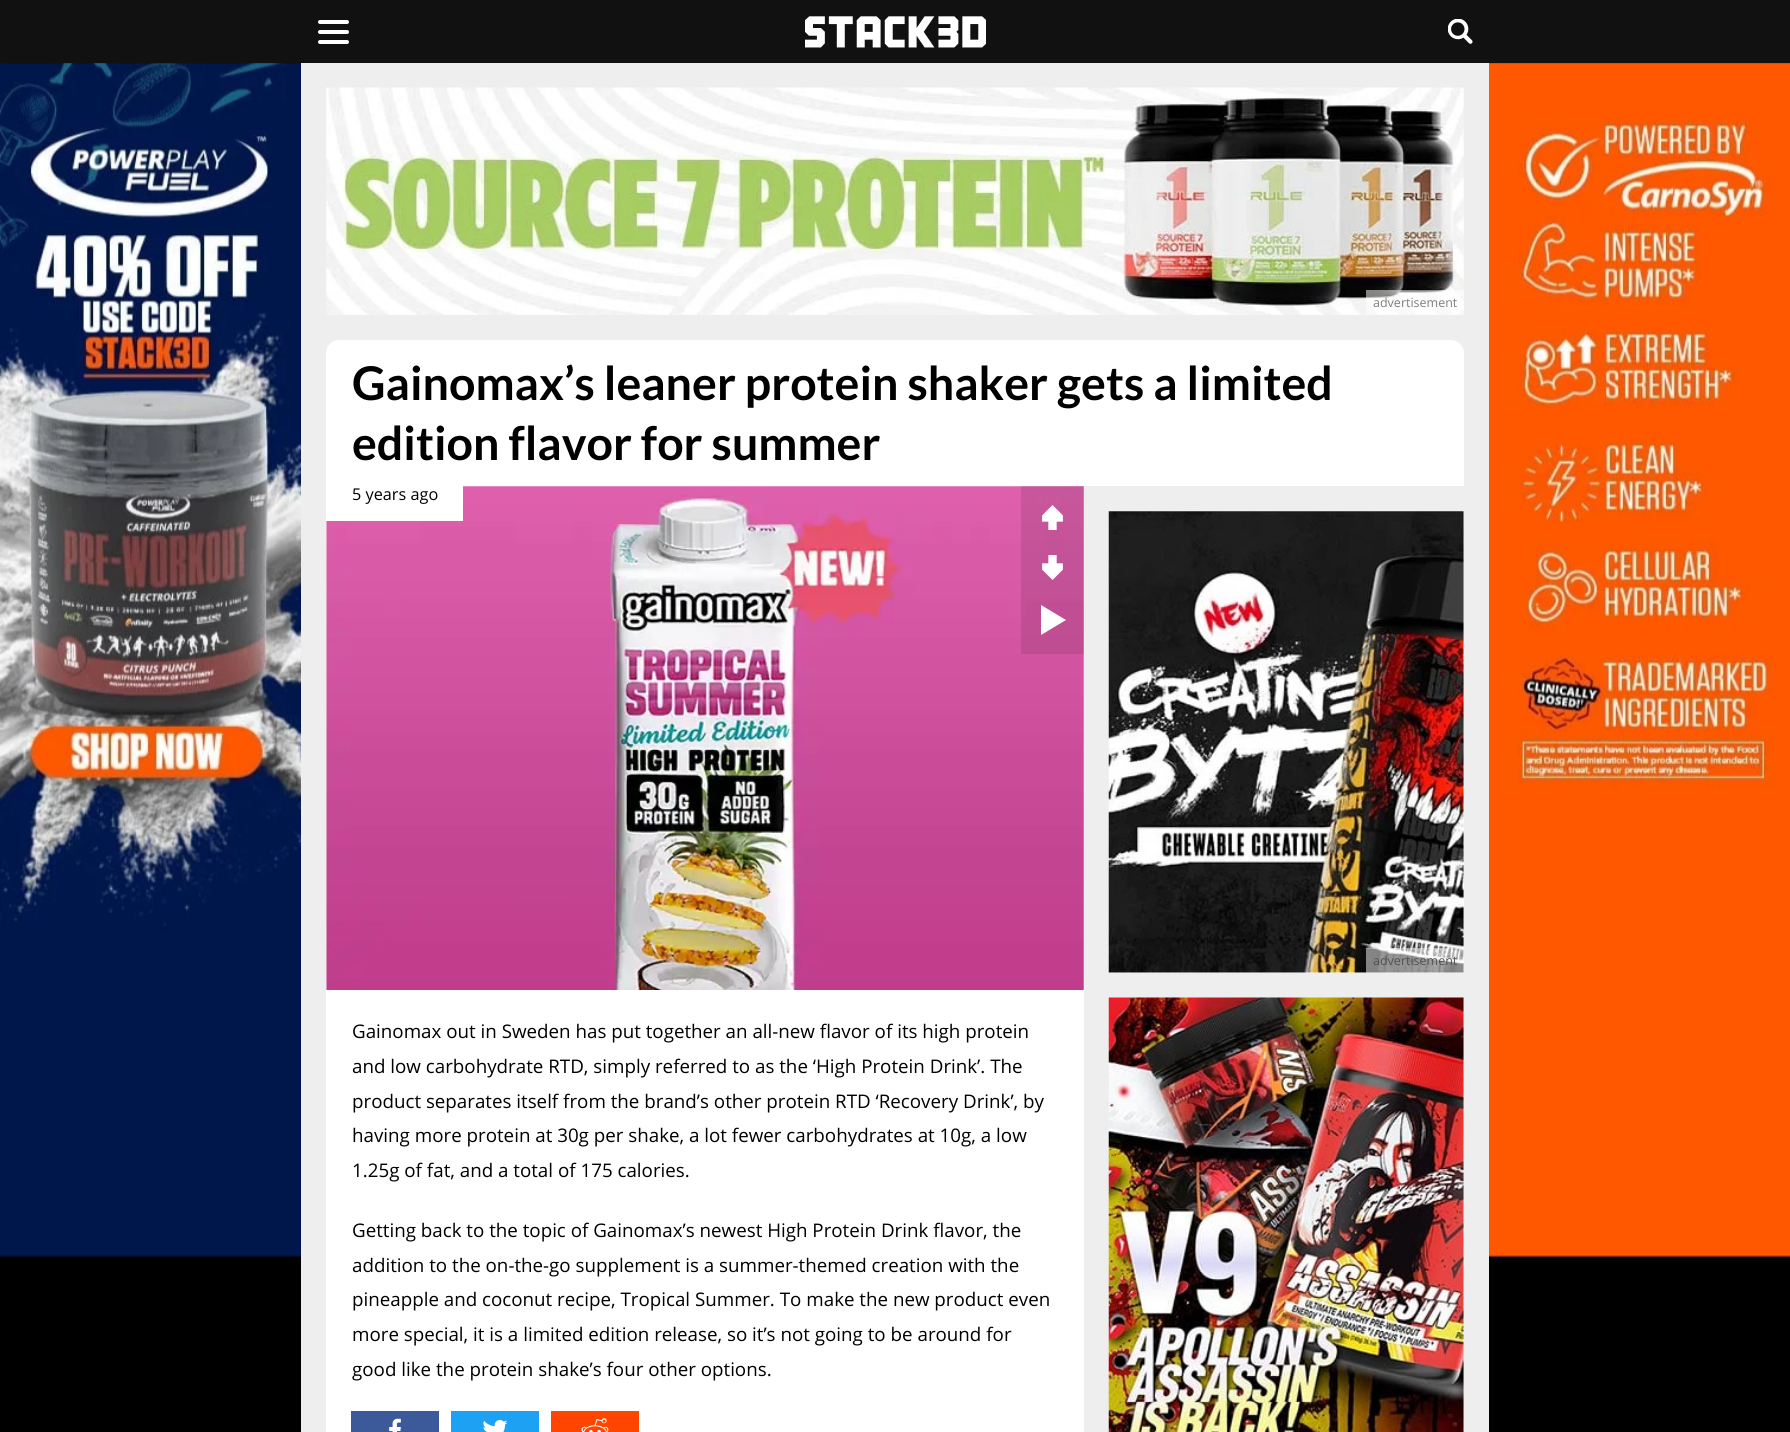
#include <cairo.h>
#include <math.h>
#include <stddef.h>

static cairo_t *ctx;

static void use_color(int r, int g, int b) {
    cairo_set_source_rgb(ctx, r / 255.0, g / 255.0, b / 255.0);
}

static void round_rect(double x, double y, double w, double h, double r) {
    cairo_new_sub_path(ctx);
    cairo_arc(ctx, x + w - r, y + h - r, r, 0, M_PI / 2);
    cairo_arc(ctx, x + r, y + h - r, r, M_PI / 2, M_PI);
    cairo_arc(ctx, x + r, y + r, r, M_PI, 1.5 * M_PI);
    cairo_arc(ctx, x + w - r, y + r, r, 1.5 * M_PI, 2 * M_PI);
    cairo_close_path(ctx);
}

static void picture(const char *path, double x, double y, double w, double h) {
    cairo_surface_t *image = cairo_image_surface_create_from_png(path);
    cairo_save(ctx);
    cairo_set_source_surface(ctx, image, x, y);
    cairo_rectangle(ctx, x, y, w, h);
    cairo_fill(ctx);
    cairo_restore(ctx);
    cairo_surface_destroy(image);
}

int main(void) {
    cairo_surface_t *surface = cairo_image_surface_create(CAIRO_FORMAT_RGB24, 1790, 1432);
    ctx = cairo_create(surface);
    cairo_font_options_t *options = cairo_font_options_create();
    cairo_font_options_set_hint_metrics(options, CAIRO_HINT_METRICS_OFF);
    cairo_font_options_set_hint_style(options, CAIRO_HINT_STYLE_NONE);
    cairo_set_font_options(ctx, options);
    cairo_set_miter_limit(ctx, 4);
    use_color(0, 0, 0);
    cairo_paint(ctx);
    picture("img1.png", 0, 63, 1790, 1194);
    use_color(17, 17, 17);
    cairo_rectangle(ctx, 0, 0, 1790, 63);
    cairo_fill(ctx);
    use_color(255, 255, 255);
    round_rect(318, 30, 31, 4, 2);
    cairo_fill(ctx);
    round_rect(318, 20, 31, 4, 2);
    cairo_fill(ctx);
    round_rect(318, 40, 31, 4, 2);
    cairo_fill(ctx);
    picture("img2.png", 805, 16, 181, 32);
    picture("img3.png", 1448, 19, 25, 25);
    use_color(238, 238, 238);
    cairo_rectangle(ctx, 301, 63, 1188, 1369);
    cairo_fill(ctx);
    picture("img4.png", 326, 87, 1138, 228);
    cairo_set_source_rgba(ctx, 1, 1, 1, 0.5);
    cairo_rectangle(ctx, 1366, 290, 98, 25);
    cairo_fill(ctx);
    cairo_select_font_face(ctx, "Open Sans", CAIRO_FONT_SLANT_NORMAL, CAIRO_FONT_WEIGHT_NORMAL);
    cairo_set_font_size(ctx, 12.5);
    use_color(126, 126, 126);
    cairo_move_to(ctx, 1373, 307);
    cairo_show_text(ctx, "advertisement");
    use_color(255, 255, 255);
    cairo_new_path(ctx);
    cairo_move_to(ctx, 339, 340);
    cairo_line_to(ctx, 1451, 340);
    cairo_curve_to(ctx, 1458, 340, 1464, 346, 1464, 353);
    cairo_line_to(ctx, 1464, 486);
    cairo_line_to(ctx, 326, 486);
    cairo_line_to(ctx, 326, 353);
    cairo_curve_to(ctx, 326, 346, 332, 340, 339, 340);
    cairo_close_path(ctx);
    cairo_fill(ctx);
    cairo_select_font_face(ctx, "Lato", CAIRO_FONT_SLANT_NORMAL, CAIRO_FONT_WEIGHT_BOLD);
    cairo_set_font_size(ctx, 46.5);
    use_color(0, 0, 0);
    cairo_move_to(ctx, 352, 400);
    cairo_show_text(ctx, "Gainomax’s leaner protein shaker gets a limited");
    cairo_move_to(ctx, 352, 460);
    cairo_show_text(ctx, "edition flavor for summer");
    use_color(255, 255, 255);
    cairo_rectangle(ctx, 326, 486, 758, 946);
    cairo_fill(ctx);
    picture("img7.png", 326, 486, 758, 504);
    cairo_rectangle(ctx, 326, 486, 137, 35);
    cairo_fill(ctx);
    cairo_select_font_face(ctx, "Open Sans", CAIRO_FONT_SLANT_NORMAL, CAIRO_FONT_WEIGHT_NORMAL);
    cairo_set_font_size(ctx, 16.25);
    use_color(0, 0, 0);
    cairo_move_to(ctx, 352, 500);
    cairo_show_text(ctx, "5 years ago");
    cairo_set_source_rgba(ctx, 0, 0, 0, 0.1);
    cairo_rectangle(ctx, 1021, 486, 63, 168);
    cairo_fill(ctx);
    picture("img5.png", 1042, 505, 21, 25);
    picture("img6.png", 1042, 555, 21, 25);
    use_color(255, 255, 255);
    cairo_new_path(ctx);
    cairo_move_to(ctx, 1041, 635);
    cairo_line_to(ctx, 1041, 605);
    cairo_line_to(ctx, 1066, 620);
    cairo_close_path(ctx);
    cairo_fill(ctx);
    cairo_set_font_size(ctx, 18.75);
    use_color(0, 0, 0);
    cairo_move_to(ctx, 352, 1038);
    cairo_show_text(ctx, "Gainomax out in Sweden has put together an all-new flavor of its high protein");
    cairo_move_to(ctx, 352, 1073);
    cairo_show_text(ctx, "and low carbohydrate RTD, simply referred to as the ‘High Protein Drink’. The");
    cairo_move_to(ctx, 352, 1108);
    cairo_show_text(ctx, "product separates itself from the brand’s other protein RTD ‘Recovery Drink’, by");
    cairo_move_to(ctx, 352, 1142);
    cairo_show_text(ctx, "having more protein at 30g per shake, a lot fewer carbohydrates at 10g, a low");
    cairo_move_to(ctx, 352, 1177);
    cairo_show_text(ctx, "1.25g of fat, and a total of 175 calories.");
    cairo_move_to(ctx, 352, 1237);
    cairo_show_text(ctx, "Getting back to the topic of Gainomax’s newest High Protein Drink flavor, the");
    cairo_move_to(ctx, 352, 1272);
    cairo_show_text(ctx, "addition to the on-the-go supplement is a summer-themed creation with the");
    cairo_move_to(ctx, 352, 1306);
    cairo_show_text(ctx, "pineapple and coconut recipe, Tropical Summer. To make the new product even");
    cairo_move_to(ctx, 352, 1341);
    cairo_show_text(ctx, "more special, it is a limited edition release, so it’s not going to be around for");
    cairo_move_to(ctx, 352, 1376);
    cairo_show_text(ctx, "good like the protein shake’s four other options.");
    use_color(60, 90, 153);
    cairo_rectangle(ctx, 351, 1411, 88, 21);
    cairo_fill(ctx);
    use_color(29, 161, 242);
    cairo_rectangle(ctx, 451, 1411, 88, 21);
    cairo_fill(ctx);
    use_color(255, 69, 0);
    cairo_rectangle(ctx, 551, 1411, 88, 21);
    cairo_fill(ctx);
    picture("img8.png", 389, 1418, 12, 14);
    picture("img9.png", 483, 1420, 25, 12);
    picture("img10.png", 581, 1418, 28, 14);
    use_color(255, 255, 255);
    cairo_rectangle(ctx, 1109, 511, 355, 462);
    cairo_fill(ctx);
    picture("img11.png", 1108, 511, 356, 462);
    cairo_set_source_rgba(ctx, 1, 1, 1, 0.5);
    cairo_rectangle(ctx, 1366, 948, 98, 25);
    cairo_fill(ctx);
    cairo_set_font_size(ctx, 12.5);
    use_color(80, 80, 80);
    cairo_move_to(ctx, 1373, 965);
    cairo_show_text(ctx, "advertisement");
    use_color(255, 255, 255);
    cairo_rectangle(ctx, 1463, 998, 1, 434);
    cairo_fill(ctx);
    picture("img12.png", 1108, 997, 356, 435);
    cairo_surface_write_to_png(surface, "result.png");
    cairo_font_options_destroy(options);
    cairo_destroy(ctx);
    cairo_surface_destroy(surface);
    return 0;
}
